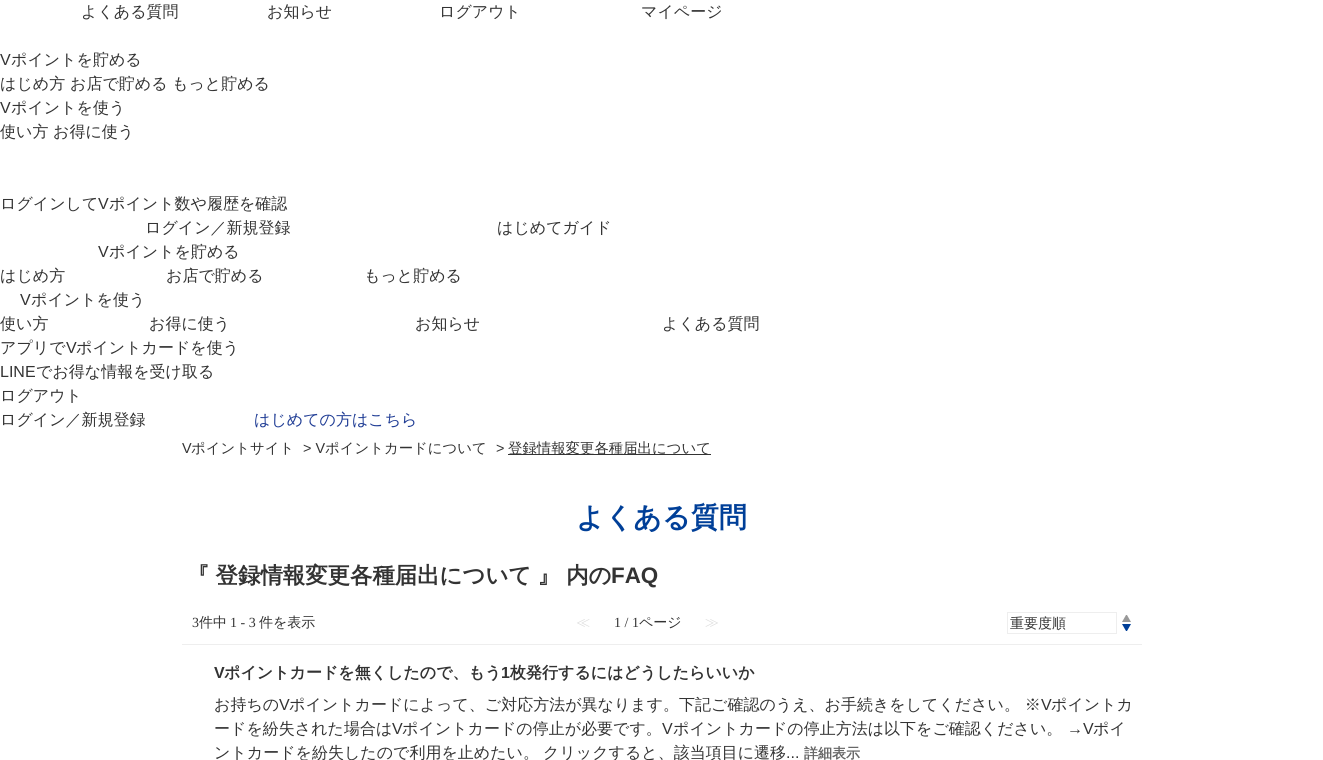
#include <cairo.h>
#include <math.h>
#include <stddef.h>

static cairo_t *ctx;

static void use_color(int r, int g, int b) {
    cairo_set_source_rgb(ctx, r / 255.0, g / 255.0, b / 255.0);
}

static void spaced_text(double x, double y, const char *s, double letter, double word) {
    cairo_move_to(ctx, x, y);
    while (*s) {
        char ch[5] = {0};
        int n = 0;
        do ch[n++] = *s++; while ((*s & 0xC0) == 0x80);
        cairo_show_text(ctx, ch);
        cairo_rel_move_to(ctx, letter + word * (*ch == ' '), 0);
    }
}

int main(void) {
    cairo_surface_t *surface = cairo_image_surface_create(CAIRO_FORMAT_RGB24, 1323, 760);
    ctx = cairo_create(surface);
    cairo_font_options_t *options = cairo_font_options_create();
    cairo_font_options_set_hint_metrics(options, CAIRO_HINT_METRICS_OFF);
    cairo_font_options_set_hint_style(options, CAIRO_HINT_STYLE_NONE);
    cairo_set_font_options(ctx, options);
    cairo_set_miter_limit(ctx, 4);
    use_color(255, 255, 255);
    cairo_paint(ctx);
    cairo_select_font_face(ctx, "WenQuanYi Zen Hei Medium", CAIRO_FONT_SLANT_NORMAL, CAIRO_FONT_WEIGHT_NORMAL);
    cairo_set_font_size(ctx, 16);
    use_color(51, 51, 51);
    cairo_move_to(ctx, 81, 17);
    cairo_show_text(ctx, "よくある質問");
    cairo_move_to(ctx, 267, 17);
    cairo_show_text(ctx, "お知らせ");
    cairo_move_to(ctx, 439, 17);
    cairo_show_text(ctx, "ログアウト");
    cairo_move_to(ctx, 641, 17);
    cairo_show_text(ctx, "マイページ");
    cairo_select_font_face(ctx, "Liberation Sans", CAIRO_FONT_SLANT_NORMAL, CAIRO_FONT_WEIGHT_NORMAL);
    cairo_move_to(ctx, 0, 65);
    cairo_show_text(ctx, "V");
    cairo_select_font_face(ctx, "WenQuanYi Zen Hei Medium", CAIRO_FONT_SLANT_NORMAL, CAIRO_FONT_WEIGHT_NORMAL);
    cairo_move_to(ctx, 11, 65);
    cairo_show_text(ctx, "ポイントを貯める");
    cairo_move_to(ctx, 0, 89);
    cairo_show_text(ctx, "はじめ方");
    cairo_move_to(ctx, 70, 89);
    cairo_show_text(ctx, "お店で貯める");
    cairo_move_to(ctx, 172, 89);
    cairo_show_text(ctx, "もっと貯める");
    cairo_select_font_face(ctx, "Liberation Sans", CAIRO_FONT_SLANT_NORMAL, CAIRO_FONT_WEIGHT_NORMAL);
    cairo_move_to(ctx, 0, 113);
    cairo_show_text(ctx, "V");
    cairo_select_font_face(ctx, "WenQuanYi Zen Hei Medium", CAIRO_FONT_SLANT_NORMAL, CAIRO_FONT_WEIGHT_NORMAL);
    cairo_move_to(ctx, 11, 113);
    cairo_show_text(ctx, "ポイントを使う");
    cairo_move_to(ctx, 0, 137);
    cairo_show_text(ctx, "使い方");
    cairo_move_to(ctx, 53, 137);
    cairo_show_text(ctx, "お得に使う");
    cairo_move_to(ctx, 0, 209);
    cairo_show_text(ctx, "ログインして");
    cairo_select_font_face(ctx, "Liberation Sans", CAIRO_FONT_SLANT_NORMAL, CAIRO_FONT_WEIGHT_NORMAL);
    cairo_move_to(ctx, 98, 209);
    cairo_show_text(ctx, "V");
    cairo_select_font_face(ctx, "WenQuanYi Zen Hei Medium", CAIRO_FONT_SLANT_NORMAL, CAIRO_FONT_WEIGHT_NORMAL);
    cairo_move_to(ctx, 109, 209);
    cairo_show_text(ctx, "ポイント数や履歴を確認");
    cairo_move_to(ctx, 145, 233);
    cairo_show_text(ctx, "ログイン／新規登録");
    cairo_move_to(ctx, 497, 233);
    cairo_show_text(ctx, "はじめてガイド");
    cairo_select_font_face(ctx, "Liberation Sans", CAIRO_FONT_SLANT_NORMAL, CAIRO_FONT_WEIGHT_NORMAL);
    cairo_move_to(ctx, 98, 257);
    cairo_show_text(ctx, "V");
    cairo_select_font_face(ctx, "WenQuanYi Zen Hei Medium", CAIRO_FONT_SLANT_NORMAL, CAIRO_FONT_WEIGHT_NORMAL);
    cairo_move_to(ctx, 109, 257);
    cairo_show_text(ctx, "ポイントを貯める");
    cairo_move_to(ctx, 0, 281);
    cairo_show_text(ctx, "はじめ方");
    cairo_move_to(ctx, 166, 281);
    cairo_show_text(ctx, "お店で貯める");
    cairo_move_to(ctx, 364, 281);
    cairo_show_text(ctx, "もっと貯める");
    cairo_select_font_face(ctx, "Liberation Sans", CAIRO_FONT_SLANT_NORMAL, CAIRO_FONT_WEIGHT_NORMAL);
    cairo_move_to(ctx, 20, 305);
    cairo_show_text(ctx, "V");
    cairo_select_font_face(ctx, "WenQuanYi Zen Hei Medium", CAIRO_FONT_SLANT_NORMAL, CAIRO_FONT_WEIGHT_NORMAL);
    cairo_move_to(ctx, 31, 305);
    cairo_show_text(ctx, "ポイントを使う");
    cairo_move_to(ctx, 0, 329);
    cairo_show_text(ctx, "使い方");
    cairo_move_to(ctx, 149, 329);
    cairo_show_text(ctx, "お得に使う");
    cairo_move_to(ctx, 415, 329);
    cairo_show_text(ctx, "お知らせ");
    cairo_move_to(ctx, 662, 329);
    cairo_show_text(ctx, "よくある質問");
    cairo_move_to(ctx, 0, 353);
    cairo_show_text(ctx, "アプリで");
    cairo_select_font_face(ctx, "Liberation Sans", CAIRO_FONT_SLANT_NORMAL, CAIRO_FONT_WEIGHT_NORMAL);
    cairo_move_to(ctx, 66, 353);
    cairo_show_text(ctx, "V");
    cairo_select_font_face(ctx, "WenQuanYi Zen Hei Medium", CAIRO_FONT_SLANT_NORMAL, CAIRO_FONT_WEIGHT_NORMAL);
    cairo_move_to(ctx, 76, 353);
    cairo_show_text(ctx, "ポイントカードを使う");
    cairo_select_font_face(ctx, "Liberation Sans", CAIRO_FONT_SLANT_NORMAL, CAIRO_FONT_WEIGHT_NORMAL);
    cairo_move_to(ctx, 0, 377);
    cairo_show_text(ctx, "LINE");
    cairo_select_font_face(ctx, "WenQuanYi Zen Hei Medium", CAIRO_FONT_SLANT_NORMAL, CAIRO_FONT_WEIGHT_NORMAL);
    cairo_move_to(ctx, 36, 377);
    cairo_show_text(ctx, "でお得な情報を受け取る");
    cairo_move_to(ctx, 0, 401);
    cairo_show_text(ctx, "ログアウト");
    cairo_move_to(ctx, 0, 425);
    cairo_show_text(ctx, "ログイン／新規登録");
    use_color(32, 61, 149);
    cairo_move_to(ctx, 254, 425);
    cairo_show_text(ctx, "はじめての方はこちら");
    cairo_select_font_face(ctx, "Liberation Sans", CAIRO_FONT_SLANT_NORMAL, CAIRO_FONT_WEIGHT_NORMAL);
    cairo_set_font_size(ctx, 14.4);
    use_color(51, 51, 51);
    cairo_move_to(ctx, 182, 453);
    cairo_show_text(ctx, "V");
    cairo_select_font_face(ctx, "WenQuanYi Zen Hei Medium", CAIRO_FONT_SLANT_NORMAL, CAIRO_FONT_WEIGHT_NORMAL);
    cairo_move_to(ctx, 191, 453);
    cairo_show_text(ctx, "ポイントサイト");
    cairo_select_font_face(ctx, "Liberation Sans", CAIRO_FONT_SLANT_NORMAL, CAIRO_FONT_WEIGHT_NORMAL);
    cairo_move_to(ctx, 303, 453);
    cairo_show_text(ctx, "> V");
    cairo_select_font_face(ctx, "WenQuanYi Zen Hei Medium", CAIRO_FONT_SLANT_NORMAL, CAIRO_FONT_WEIGHT_NORMAL);
    cairo_move_to(ctx, 325, 453);
    cairo_show_text(ctx, "ポイントカードについて");
    cairo_select_font_face(ctx, "Liberation Sans", CAIRO_FONT_SLANT_NORMAL, CAIRO_FONT_WEIGHT_NORMAL);
    cairo_move_to(ctx, 496, 453);
    cairo_show_text(ctx, ">");
    cairo_rectangle(ctx, 508, 454, 203, 1);
    cairo_fill(ctx);
    cairo_select_font_face(ctx, "WenQuanYi Zen Hei Medium", CAIRO_FONT_SLANT_NORMAL, CAIRO_FONT_WEIGHT_NORMAL);
    cairo_move_to(ctx, 508, 453);
    cairo_show_text(ctx, "登録情報変更各種届出について");
    cairo_select_font_face(ctx, "WenQuanYi Zen Hei", CAIRO_FONT_SLANT_NORMAL, CAIRO_FONT_WEIGHT_BOLD);
    cairo_set_font_size(ctx, 28);
    use_color(0, 63, 152);
    cairo_move_to(ctx, 576, 527);
    cairo_show_text(ctx, "よくある質問");
    cairo_set_font_size(ctx, 22.4);
    use_color(51, 51, 51);
    spaced_text(187, 583, "『 登録情報変更各種届出について 』 内の", 0, -0.5);
    cairo_select_font_face(ctx, "Liberation Sans", CAIRO_FONT_SLANT_NORMAL, CAIRO_FONT_WEIGHT_BOLD);
    cairo_move_to(ctx, 611, 583);
    cairo_show_text(ctx, "FAQ");
    cairo_select_font_face(ctx, "Liberation Serif", CAIRO_FONT_SLANT_NORMAL, CAIRO_FONT_WEIGHT_NORMAL);
    cairo_set_font_size(ctx, 14);
    cairo_move_to(ctx, 192, 627);
    cairo_show_text(ctx, "3");
    cairo_select_font_face(ctx, "WenQuanYi Zen Hei Medium", CAIRO_FONT_SLANT_NORMAL, CAIRO_FONT_WEIGHT_NORMAL);
    cairo_move_to(ctx, 199, 627);
    cairo_show_text(ctx, "件中");
    cairo_select_font_face(ctx, "Liberation Serif", CAIRO_FONT_SLANT_NORMAL, CAIRO_FONT_WEIGHT_NORMAL);
    cairo_move_to(ctx, 230, 627);
    cairo_show_text(ctx, "1 - 3");
    cairo_select_font_face(ctx, "WenQuanYi Zen Hei Medium", CAIRO_FONT_SLANT_NORMAL, CAIRO_FONT_WEIGHT_NORMAL);
    cairo_move_to(ctx, 259, 627);
    cairo_show_text(ctx, "件を表示");
    use_color(221, 221, 221);
    cairo_move_to(ctx, 576, 627);
    cairo_show_text(ctx, "≪");
    cairo_select_font_face(ctx, "Liberation Serif", CAIRO_FONT_SLANT_NORMAL, CAIRO_FONT_WEIGHT_NORMAL);
    use_color(51, 51, 51);
    cairo_move_to(ctx, 614, 627);
    cairo_show_text(ctx, "1 / 1");
    cairo_select_font_face(ctx, "WenQuanYi Zen Hei Medium", CAIRO_FONT_SLANT_NORMAL, CAIRO_FONT_WEIGHT_NORMAL);
    cairo_move_to(ctx, 639, 627);
    cairo_show_text(ctx, "ページ");
    use_color(221, 221, 221);
    cairo_move_to(ctx, 705, 627);
    cairo_show_text(ctx, "≫");
    cairo_rectangle(ctx, 1007.5, 612.5, 109, 21);
    use_color(238, 238, 238);
    cairo_set_line_width(ctx, 1);
    cairo_stroke(ctx);
    use_color(51, 51, 51);
    cairo_move_to(ctx, 1010, 628);
    cairo_show_text(ctx, "重要度順");
    use_color(153, 153, 153);
    cairo_new_path(ctx);
    cairo_move_to(ctx, 1131, 622);
    cairo_line_to(ctx, 1122, 622);
    cairo_line_to(ctx, 1126, 615);
    cairo_line_to(ctx, 1127, 615);
    cairo_close_path(ctx);
    cairo_fill(ctx);
    use_color(0, 63, 152);
    cairo_new_path(ctx);
    cairo_move_to(ctx, 1122, 624);
    cairo_line_to(ctx, 1131, 624);
    cairo_line_to(ctx, 1127, 631);
    cairo_line_to(ctx, 1126, 631);
    cairo_close_path(ctx);
    cairo_fill(ctx);
    use_color(238, 238, 238);
    cairo_rectangle(ctx, 182, 644, 960, 1);
    cairo_fill(ctx);
    cairo_select_font_face(ctx, "Liberation Sans", CAIRO_FONT_SLANT_NORMAL, CAIRO_FONT_WEIGHT_BOLD);
    cairo_set_font_size(ctx, 16);
    use_color(51, 51, 51);
    cairo_move_to(ctx, 214, 678);
    cairo_show_text(ctx, "V");
    cairo_select_font_face(ctx, "WenQuanYi Zen Hei", CAIRO_FONT_SLANT_NORMAL, CAIRO_FONT_WEIGHT_BOLD);
    cairo_move_to(ctx, 224, 678);
    cairo_show_text(ctx, "ポイントカードを無くしたので、もう");
    cairo_select_font_face(ctx, "Liberation Sans", CAIRO_FONT_SLANT_NORMAL, CAIRO_FONT_WEIGHT_BOLD);
    cairo_move_to(ctx, 501, 678);
    cairo_show_text(ctx, "1");
    cairo_select_font_face(ctx, "WenQuanYi Zen Hei", CAIRO_FONT_SLANT_NORMAL, CAIRO_FONT_WEIGHT_BOLD);
    cairo_move_to(ctx, 510, 678);
    cairo_show_text(ctx, "枚発行するにはどうしたらいいか");
    cairo_select_font_face(ctx, "WenQuanYi Zen Hei Medium", CAIRO_FONT_SLANT_NORMAL, CAIRO_FONT_WEIGHT_NORMAL);
    cairo_move_to(ctx, 214, 710);
    cairo_show_text(ctx, "お持ちの");
    cairo_select_font_face(ctx, "Liberation Sans", CAIRO_FONT_SLANT_NORMAL, CAIRO_FONT_WEIGHT_NORMAL);
    cairo_move_to(ctx, 279, 710);
    cairo_show_text(ctx, "V");
    cairo_select_font_face(ctx, "WenQuanYi Zen Hei Medium", CAIRO_FONT_SLANT_NORMAL, CAIRO_FONT_WEIGHT_NORMAL);
    cairo_move_to(ctx, 289, 710);
    cairo_show_text(ctx, "ポイントカードによって、ご対応方法が異なります。下記ご確認のうえ、お手続きをしてください。 ※");
    cairo_select_font_face(ctx, "Liberation Sans", CAIRO_FONT_SLANT_NORMAL, CAIRO_FONT_WEIGHT_NORMAL);
    cairo_move_to(ctx, 1041, 710);
    cairo_show_text(ctx, "V");
    cairo_select_font_face(ctx, "WenQuanYi Zen Hei Medium", CAIRO_FONT_SLANT_NORMAL, CAIRO_FONT_WEIGHT_NORMAL);
    cairo_move_to(ctx, 1051, 710);
    cairo_show_text(ctx, "ポイントカ");
    cairo_move_to(ctx, 214, 734);
    cairo_show_text(ctx, "ードを紛失された場合は");
    cairo_select_font_face(ctx, "Liberation Sans", CAIRO_FONT_SLANT_NORMAL, CAIRO_FONT_WEIGHT_NORMAL);
    cairo_move_to(ctx, 392, 734);
    cairo_show_text(ctx, "V");
    cairo_select_font_face(ctx, "WenQuanYi Zen Hei Medium", CAIRO_FONT_SLANT_NORMAL, CAIRO_FONT_WEIGHT_NORMAL);
    cairo_move_to(ctx, 402, 734);
    cairo_show_text(ctx, "ポイントカードの停止が必要です。");
    cairo_select_font_face(ctx, "Liberation Sans", CAIRO_FONT_SLANT_NORMAL, CAIRO_FONT_WEIGHT_NORMAL);
    cairo_move_to(ctx, 662, 734);
    cairo_show_text(ctx, "V");
    cairo_select_font_face(ctx, "WenQuanYi Zen Hei Medium", CAIRO_FONT_SLANT_NORMAL, CAIRO_FONT_WEIGHT_NORMAL);
    cairo_move_to(ctx, 673, 734);
    cairo_show_text(ctx, "ポイントカードの停止方法は以下をご確認ください。");
    cairo_select_font_face(ctx, "Liberation Sans", CAIRO_FONT_SLANT_NORMAL, CAIRO_FONT_WEIGHT_NORMAL);
    cairo_move_to(ctx, 1067, 734);
    cairo_show_text(ctx, "→V");
    cairo_select_font_face(ctx, "WenQuanYi Zen Hei Medium", CAIRO_FONT_SLANT_NORMAL, CAIRO_FONT_WEIGHT_NORMAL);
    cairo_move_to(ctx, 1093, 734);
    cairo_show_text(ctx, "ポイ");
    cairo_move_to(ctx, 214, 758);
    cairo_show_text(ctx, "ントカードを紛失したので利用を止めたい。");
    cairo_move_to(ctx, 543, 758);
    cairo_show_text(ctx, "クリックすると、該当項目に遷移");
    cairo_select_font_face(ctx, "Liberation Sans", CAIRO_FONT_SLANT_NORMAL, CAIRO_FONT_WEIGHT_NORMAL);
    cairo_move_to(ctx, 786, 758);
    cairo_show_text(ctx, "...");
    cairo_select_font_face(ctx, "WenQuanYi Zen Hei", CAIRO_FONT_SLANT_NORMAL, CAIRO_FONT_WEIGHT_BOLD);
    cairo_set_font_size(ctx, 14);
    use_color(102, 102, 102);
    cairo_move_to(ctx, 804, 758);
    cairo_show_text(ctx, "詳細表示");
    cairo_surface_write_to_png(surface, "result.png");
    cairo_font_options_destroy(options);
    cairo_destroy(ctx);
    cairo_surface_destroy(surface);
    return 0;
}
